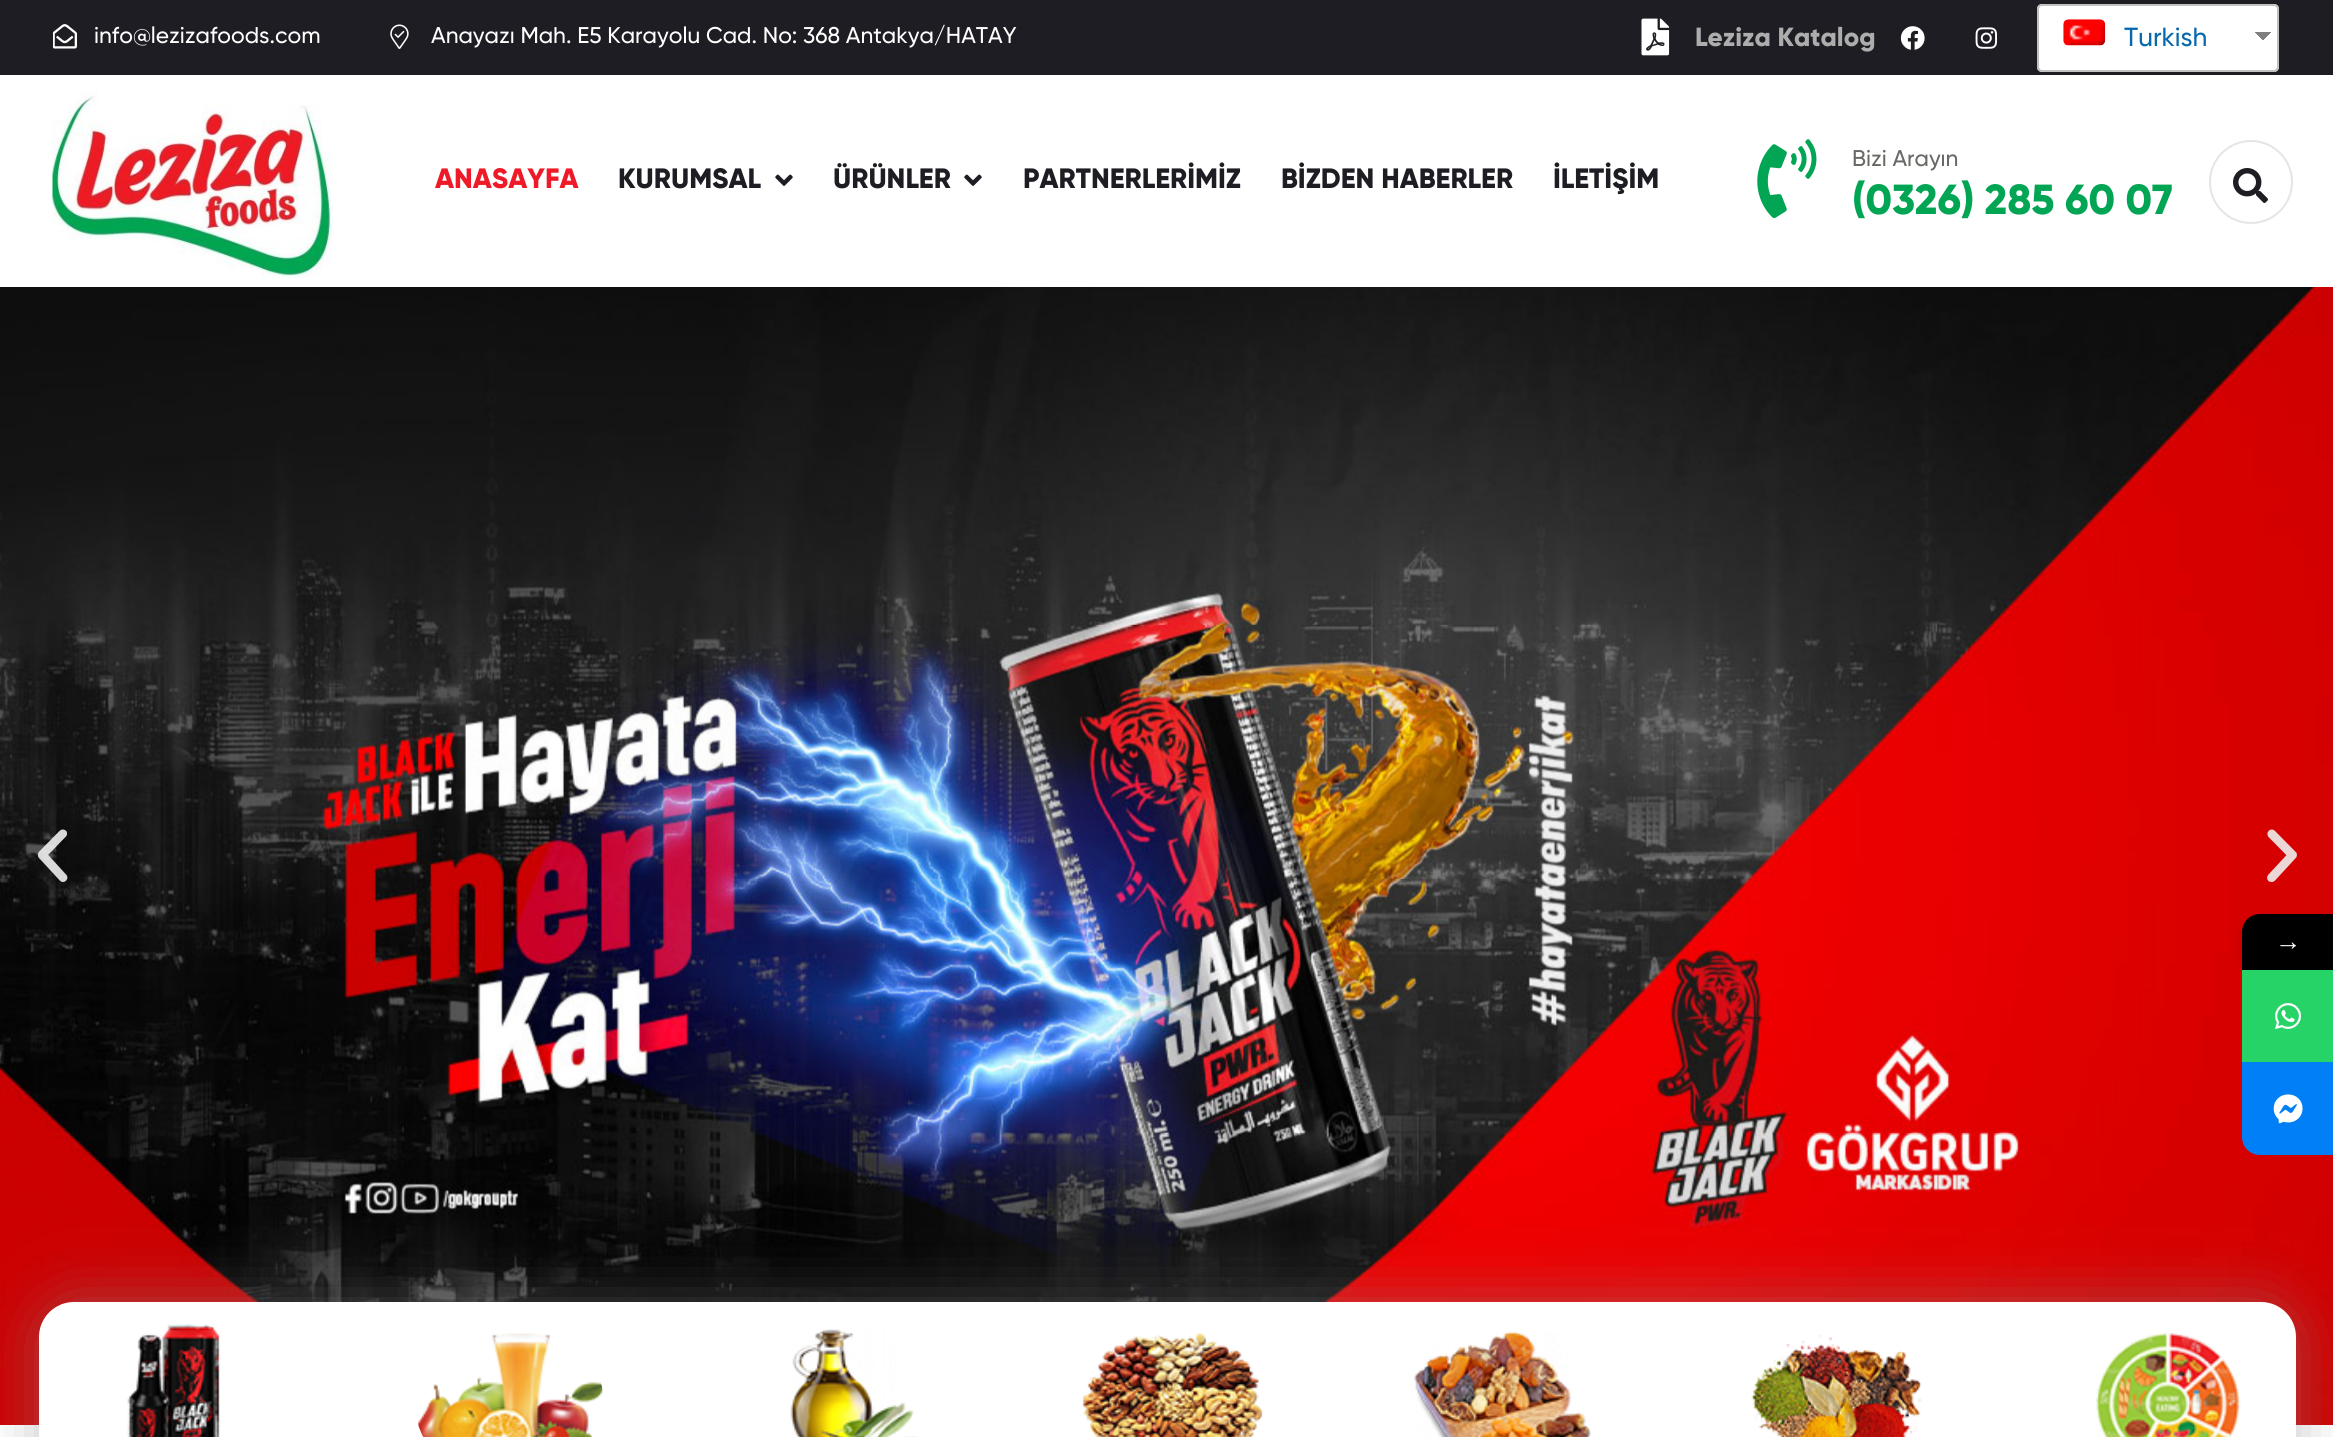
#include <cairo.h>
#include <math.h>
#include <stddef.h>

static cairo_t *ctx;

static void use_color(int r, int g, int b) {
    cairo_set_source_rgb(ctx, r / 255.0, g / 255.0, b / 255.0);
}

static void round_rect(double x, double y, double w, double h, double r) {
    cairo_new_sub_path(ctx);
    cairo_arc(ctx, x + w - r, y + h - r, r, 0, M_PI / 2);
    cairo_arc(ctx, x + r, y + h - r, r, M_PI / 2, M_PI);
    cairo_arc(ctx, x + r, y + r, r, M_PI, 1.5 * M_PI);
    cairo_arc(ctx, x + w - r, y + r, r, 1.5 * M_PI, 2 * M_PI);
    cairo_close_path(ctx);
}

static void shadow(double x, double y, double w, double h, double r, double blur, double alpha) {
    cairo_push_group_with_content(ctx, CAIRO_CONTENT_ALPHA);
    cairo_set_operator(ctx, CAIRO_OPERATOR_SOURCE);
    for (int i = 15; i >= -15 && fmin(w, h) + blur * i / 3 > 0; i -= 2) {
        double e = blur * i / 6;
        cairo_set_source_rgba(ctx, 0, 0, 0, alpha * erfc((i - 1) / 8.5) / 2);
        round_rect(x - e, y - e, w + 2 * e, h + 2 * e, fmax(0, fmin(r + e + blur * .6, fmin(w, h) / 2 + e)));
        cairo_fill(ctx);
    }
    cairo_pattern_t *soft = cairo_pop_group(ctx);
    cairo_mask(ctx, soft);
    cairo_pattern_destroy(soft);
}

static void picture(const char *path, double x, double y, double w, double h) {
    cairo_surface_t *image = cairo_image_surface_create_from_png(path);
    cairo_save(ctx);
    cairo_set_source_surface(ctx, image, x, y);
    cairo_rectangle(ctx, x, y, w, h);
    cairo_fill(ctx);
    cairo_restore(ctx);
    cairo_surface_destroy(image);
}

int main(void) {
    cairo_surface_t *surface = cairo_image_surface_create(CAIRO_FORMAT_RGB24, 2333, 1437);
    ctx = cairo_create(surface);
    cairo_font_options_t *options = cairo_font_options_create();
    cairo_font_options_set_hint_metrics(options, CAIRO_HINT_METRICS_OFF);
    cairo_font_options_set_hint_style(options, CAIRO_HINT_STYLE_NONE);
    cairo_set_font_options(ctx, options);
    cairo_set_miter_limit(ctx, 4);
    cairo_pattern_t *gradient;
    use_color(255, 255, 255);
    cairo_paint(ctx);
    use_color(30, 29, 35);
    cairo_rectangle(ctx, 0, 0, 2333, 75);
    cairo_fill(ctx);
    picture("img1.png", 53, 24, 24, 25);
    cairo_select_font_face(ctx, "Gilroy Medium", CAIRO_FONT_SLANT_NORMAL, CAIRO_FONT_WEIGHT_NORMAL);
    cairo_set_font_size(ctx, 22.75);
    use_color(255, 255, 255);
    cairo_move_to(ctx, 94, 43);
    cairo_show_text(ctx, "info@lezizafoods.com");
    picture("img2.png", 390, 24, 19, 25);
    cairo_move_to(ctx, 431, 43);
    cairo_show_text(ctx, "Anayazı Mah. E5 Karayolu Cad. No: 368 Antakya/HATAY");
    picture("img3.png", 1641, 18, 29, 38);
    cairo_select_font_face(ctx, "Gilroy ExtraBold", CAIRO_FONT_SLANT_NORMAL, CAIRO_FONT_WEIGHT_NORMAL);
    cairo_set_font_size(ctx, 26.25);
    use_color(173, 173, 173);
    cairo_move_to(ctx, 1695, 46);
    cairo_show_text(ctx, "Leziza Katalog");
    picture("img4.png", 1900, 26, 25, 24);
    picture("img5.png", 1975, 27, 22, 22);
    use_color(255, 255, 255);
    round_rect(2037, 4, 242, 68, 5);
    cairo_fill(ctx);
    gradient = cairo_pattern_create_linear(2263, 32, 2272, 40);
    cairo_pattern_add_color_stop_rgba(gradient, 0.5, 0.502, 0.502, 0.502, 1);
    cairo_pattern_add_color_stop_rgba(gradient, 0.5, 1, 1, 1, 1);
    cairo_set_source(ctx, gradient);
    cairo_pattern_destroy(gradient);
    cairo_rectangle(ctx, 2263, 32, 9, 8);
    cairo_fill(ctx);
    gradient = cairo_pattern_create_linear(2254, 40, 2263, 32);
    cairo_pattern_add_color_stop_rgba(gradient, 0.5, 1, 1, 1, 1);
    cairo_pattern_add_color_stop_rgba(gradient, 0.5, 0.502, 0.502, 0.502, 1);
    cairo_set_source(ctx, gradient);
    cairo_pattern_destroy(gradient);
    cairo_rectangle(ctx, 2254, 32, 9, 8);
    cairo_fill(ctx);
    round_rect(2038, 5, 240, 66, 4);
    use_color(193, 193, 193);
    cairo_stroke(ctx);
    picture("img6.png", 2063, 19, 43, 27);
    cairo_select_font_face(ctx, "Gilroy Medium", CAIRO_FONT_SLANT_NORMAL, CAIRO_FONT_WEIGHT_NORMAL);
    use_color(7, 105, 173);
    cairo_move_to(ctx, 2124, 46);
    cairo_show_text(ctx, "Turkish");
    picture("img7.png", 52, 90, 281, 188);
    cairo_select_font_face(ctx, "Gilroy ExtraBold", CAIRO_FONT_SLANT_NORMAL, CAIRO_FONT_WEIGHT_NORMAL);
    cairo_set_font_size(ctx, 28);
    use_color(238, 26, 39);
    cairo_move_to(ctx, 435, 188);
    cairo_show_text(ctx, "ANASAYFA");
    use_color(30, 29, 35);
    cairo_move_to(ctx, 618, 188);
    cairo_show_text(ctx, "KURUMSAL");
    picture("img8.png", 775, 174, 18, 12);
    cairo_move_to(ctx, 833, 188);
    cairo_show_text(ctx, "ÜRÜNLER");
    picture("img8.png", 964, 174, 18, 12);
    cairo_move_to(ctx, 1023, 188);
    cairo_show_text(ctx, "PARTNERLERİMİZ");
    cairo_move_to(ctx, 1281, 188);
    cairo_show_text(ctx, "BİZDEN HABERLER");
    cairo_move_to(ctx, 1553, 188);
    cairo_show_text(ctx, "İLETİŞİM");
    picture("img9.png", 1757, 139, 60, 80);
    cairo_select_font_face(ctx, "Gilroy Medium", CAIRO_FONT_SLANT_NORMAL, CAIRO_FONT_WEIGHT_NORMAL);
    cairo_set_font_size(ctx, 22.75);
    use_color(105, 104, 101);
    cairo_move_to(ctx, 1852, 166);
    cairo_show_text(ctx, "Bizi Arayın");
    cairo_select_font_face(ctx, "Gilroy ExtraBold", CAIRO_FONT_SLANT_NORMAL, CAIRO_FONT_WEIGHT_NORMAL);
    cairo_set_font_size(ctx, 42);
    use_color(2, 165, 84);
    cairo_move_to(ctx, 1852, 214);
    cairo_show_text(ctx, "(0326) 285 60 07");
    cairo_new_path(ctx);
    cairo_arc(ctx, 2251, 182, 41, 0, 2 * M_PI);
    use_color(229, 229, 229);
    cairo_stroke(ctx);
    picture("img10.png", 2233, 168, 35, 35);
    picture("img11.png", 0, 287, 2333, 1138);
    picture("img12.png", 37, 829, 31, 53);
    picture("img13.png", 2267, 829, 30, 53);
    use_color(138, 138, 138);
    shadow(39, 1302, 2257, 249, 35, 30, 0.5);
    use_color(255, 255, 255);
    round_rect(39, 1302, 2257, 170, 35);
    cairo_fill(ctx);
    picture("img14.png", 127, 1324, 93, 113);
    picture("img15.png", 418, 1333, 185, 104);
    picture("img16.png", 790, 1329, 129, 108);
    picture("img17.png", 1082, 1333, 181, 104);
    picture("img18.png", 1413, 1331, 178, 106);
    picture("img19.png", 1750, 1334, 172, 103);
    picture("img20.png", 2096, 1333, 145, 104);
    use_color(0, 0, 0);
    shadow(2242, 919, 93, 56, 18, 5, 0.16);
    use_color(0, 0, 0);
    cairo_new_path(ctx);
    cairo_move_to(ctx, 2260, 914);
    cairo_line_to(ctx, 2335, 914);
    cairo_line_to(ctx, 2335, 970);
    cairo_line_to(ctx, 2242, 970);
    cairo_line_to(ctx, 2242, 932);
    cairo_curve_to(ctx, 2242, 922, 2250, 914, 2260, 914);
    cairo_close_path(ctx);
    cairo_fill(ctx);
    cairo_select_font_face(ctx, "Liberation Serif", CAIRO_FONT_SLANT_NORMAL, CAIRO_FONT_WEIGHT_NORMAL);
    cairo_set_font_size(ctx, 26.25);
    use_color(255, 255, 255);
    cairo_move_to(ctx, 2275, 950);
    cairo_show_text(ctx, "→");
    use_color(38, 211, 103);
    cairo_rectangle(ctx, 2242, 970, 91, 92);
    cairo_fill(ctx);
    picture("img21.png", 2275, 1003, 26, 26);
    use_color(0, 127, 247);
    cairo_new_path(ctx);
    cairo_move_to(ctx, 2242, 1062);
    cairo_line_to(ctx, 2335, 1062);
    cairo_line_to(ctx, 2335, 1155);
    cairo_line_to(ctx, 2260, 1155);
    cairo_curve_to(ctx, 2250, 1155, 2242, 1147, 2242, 1137);
    cairo_close_path(ctx);
    cairo_fill(ctx);
    picture("img22.png", 2273, 1094, 30, 30);
    cairo_surface_write_to_png(surface, "result.png");
    cairo_font_options_destroy(options);
    cairo_destroy(ctx);
    cairo_surface_destroy(surface);
    return 0;
}
